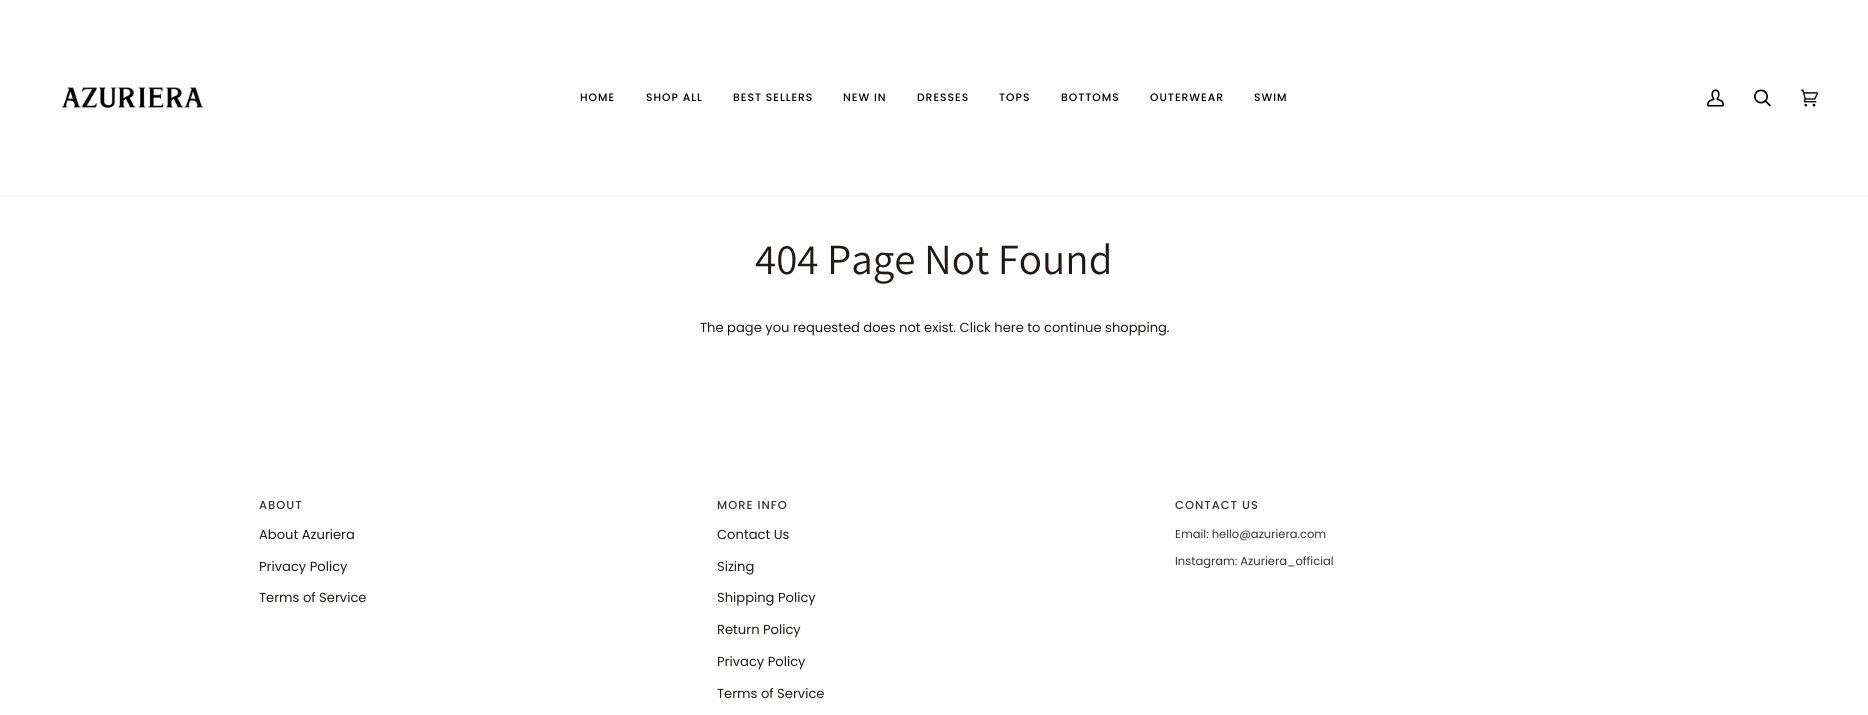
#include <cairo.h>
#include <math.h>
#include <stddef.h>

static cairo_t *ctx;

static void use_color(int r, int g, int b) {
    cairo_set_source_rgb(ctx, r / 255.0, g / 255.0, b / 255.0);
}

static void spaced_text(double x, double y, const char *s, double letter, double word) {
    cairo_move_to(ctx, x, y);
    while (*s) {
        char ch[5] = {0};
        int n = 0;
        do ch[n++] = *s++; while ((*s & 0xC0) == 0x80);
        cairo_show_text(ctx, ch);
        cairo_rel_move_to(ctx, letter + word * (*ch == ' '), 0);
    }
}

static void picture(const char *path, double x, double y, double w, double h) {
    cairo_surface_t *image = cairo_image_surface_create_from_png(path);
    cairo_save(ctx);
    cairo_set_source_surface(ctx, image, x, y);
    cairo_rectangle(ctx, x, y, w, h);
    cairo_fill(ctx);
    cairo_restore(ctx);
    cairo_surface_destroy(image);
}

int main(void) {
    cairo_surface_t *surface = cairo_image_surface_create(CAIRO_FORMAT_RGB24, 1868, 715);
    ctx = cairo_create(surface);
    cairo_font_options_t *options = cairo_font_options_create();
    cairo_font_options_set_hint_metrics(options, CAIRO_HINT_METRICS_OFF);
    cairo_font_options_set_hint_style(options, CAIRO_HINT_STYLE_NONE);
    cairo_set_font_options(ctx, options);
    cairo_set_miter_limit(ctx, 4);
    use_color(255, 255, 255);
    cairo_paint(ctx);
    use_color(247, 245, 244);
    cairo_rectangle(ctx, 0, 195, 1868, 1);
    cairo_fill(ctx);
    picture("img1.png", 62, 87, 141, 21);
    cairo_select_font_face(ctx, "Poppins Medium", CAIRO_FONT_SLANT_NORMAL, CAIRO_FONT_WEIGHT_NORMAL);
    cairo_set_font_size(ctx, 10.75);
    use_color(0, 0, 0);
    spaced_text(580, 101, "HOME", 1, 0);
    spaced_text(646, 101, "SHOP ALL", 1, 0);
    spaced_text(733, 101, "BEST SELLERS", 1, 0);
    spaced_text(843, 101, "NEW IN", 1, 0);
    spaced_text(917, 101, "DRESSES", 1, 0);
    spaced_text(999, 101, "TOPS", 1, 0);
    spaced_text(1061, 101, "BOTTOMS", 1, 0);
    spaced_text(1150, 101, "OUTERWEAR", 1, 0);
    spaced_text(1254, 101, "SWIM", 1, 0);
    picture("img2.png", 1707, 89, 17, 18);
    picture("img3.png", 1754, 89, 17, 18);
    picture("img4.png", 1801, 89, 17, 18);
    cairo_select_font_face(ctx, "Assistant", CAIRO_FONT_SLANT_NORMAL, CAIRO_FONT_WEIGHT_NORMAL);
    cairo_set_font_size(ctx, 43);
    use_color(31, 25, 25);
    cairo_move_to(ctx, 755, 274);
    cairo_show_text(ctx, "404 Page Not Found");
    cairo_select_font_face(ctx, "Poppins", CAIRO_FONT_SLANT_NORMAL, CAIRO_FONT_WEIGHT_NORMAL);
    cairo_set_font_size(ctx, 13.1);
    cairo_move_to(ctx, 700, 332);
    cairo_show_text(ctx, "The page you requested does not exist. Click here to continue shopping.");
    cairo_select_font_face(ctx, "Poppins Medium", CAIRO_FONT_SLANT_NORMAL, CAIRO_FONT_WEIGHT_NORMAL);
    cairo_set_font_size(ctx, 11.5);
    use_color(52, 52, 52);
    spaced_text(259, 509, "ABOUT", 1, 0);
    cairo_select_font_face(ctx, "Poppins", CAIRO_FONT_SLANT_NORMAL, CAIRO_FONT_WEIGHT_NORMAL);
    cairo_set_font_size(ctx, 13.1);
    use_color(31, 25, 25);
    cairo_move_to(ctx, 259, 539);
    cairo_show_text(ctx, "About Azuriera");
    cairo_move_to(ctx, 259, 571);
    cairo_show_text(ctx, "Privacy Policy");
    cairo_move_to(ctx, 259, 602);
    cairo_show_text(ctx, "Terms of Service");
    cairo_select_font_face(ctx, "Poppins Medium", CAIRO_FONT_SLANT_NORMAL, CAIRO_FONT_WEIGHT_NORMAL);
    cairo_set_font_size(ctx, 11.5);
    use_color(52, 52, 52);
    spaced_text(717, 509, "MORE INFO", 1, 0);
    cairo_select_font_face(ctx, "Poppins", CAIRO_FONT_SLANT_NORMAL, CAIRO_FONT_WEIGHT_NORMAL);
    cairo_set_font_size(ctx, 13.1);
    use_color(31, 25, 25);
    cairo_move_to(ctx, 717, 539);
    cairo_show_text(ctx, "Contact Us");
    cairo_move_to(ctx, 717, 571);
    cairo_show_text(ctx, "Sizing");
    cairo_move_to(ctx, 717, 602);
    cairo_show_text(ctx, "Shipping Policy");
    cairo_move_to(ctx, 717, 634);
    cairo_show_text(ctx, "Return Policy");
    cairo_move_to(ctx, 717, 666);
    cairo_show_text(ctx, "Privacy Policy");
    cairo_move_to(ctx, 717, 698);
    cairo_show_text(ctx, "Terms of Service");
    cairo_select_font_face(ctx, "Poppins Medium", CAIRO_FONT_SLANT_NORMAL, CAIRO_FONT_WEIGHT_NORMAL);
    cairo_set_font_size(ctx, 11.5);
    use_color(52, 52, 52);
    spaced_text(1175, 509, "CONTACT US", 1, 0);
    cairo_select_font_face(ctx, "Poppins", CAIRO_FONT_SLANT_NORMAL, CAIRO_FONT_WEIGHT_NORMAL);
    cairo_move_to(ctx, 1175, 538);
    cairo_show_text(ctx, "Email: hello@azuriera.com");
    cairo_move_to(ctx, 1175, 565);
    cairo_show_text(ctx, "Instagram: Azuriera_official");
    cairo_surface_write_to_png(surface, "result.png");
    cairo_font_options_destroy(options);
    cairo_destroy(ctx);
    cairo_surface_destroy(surface);
    return 0;
}
